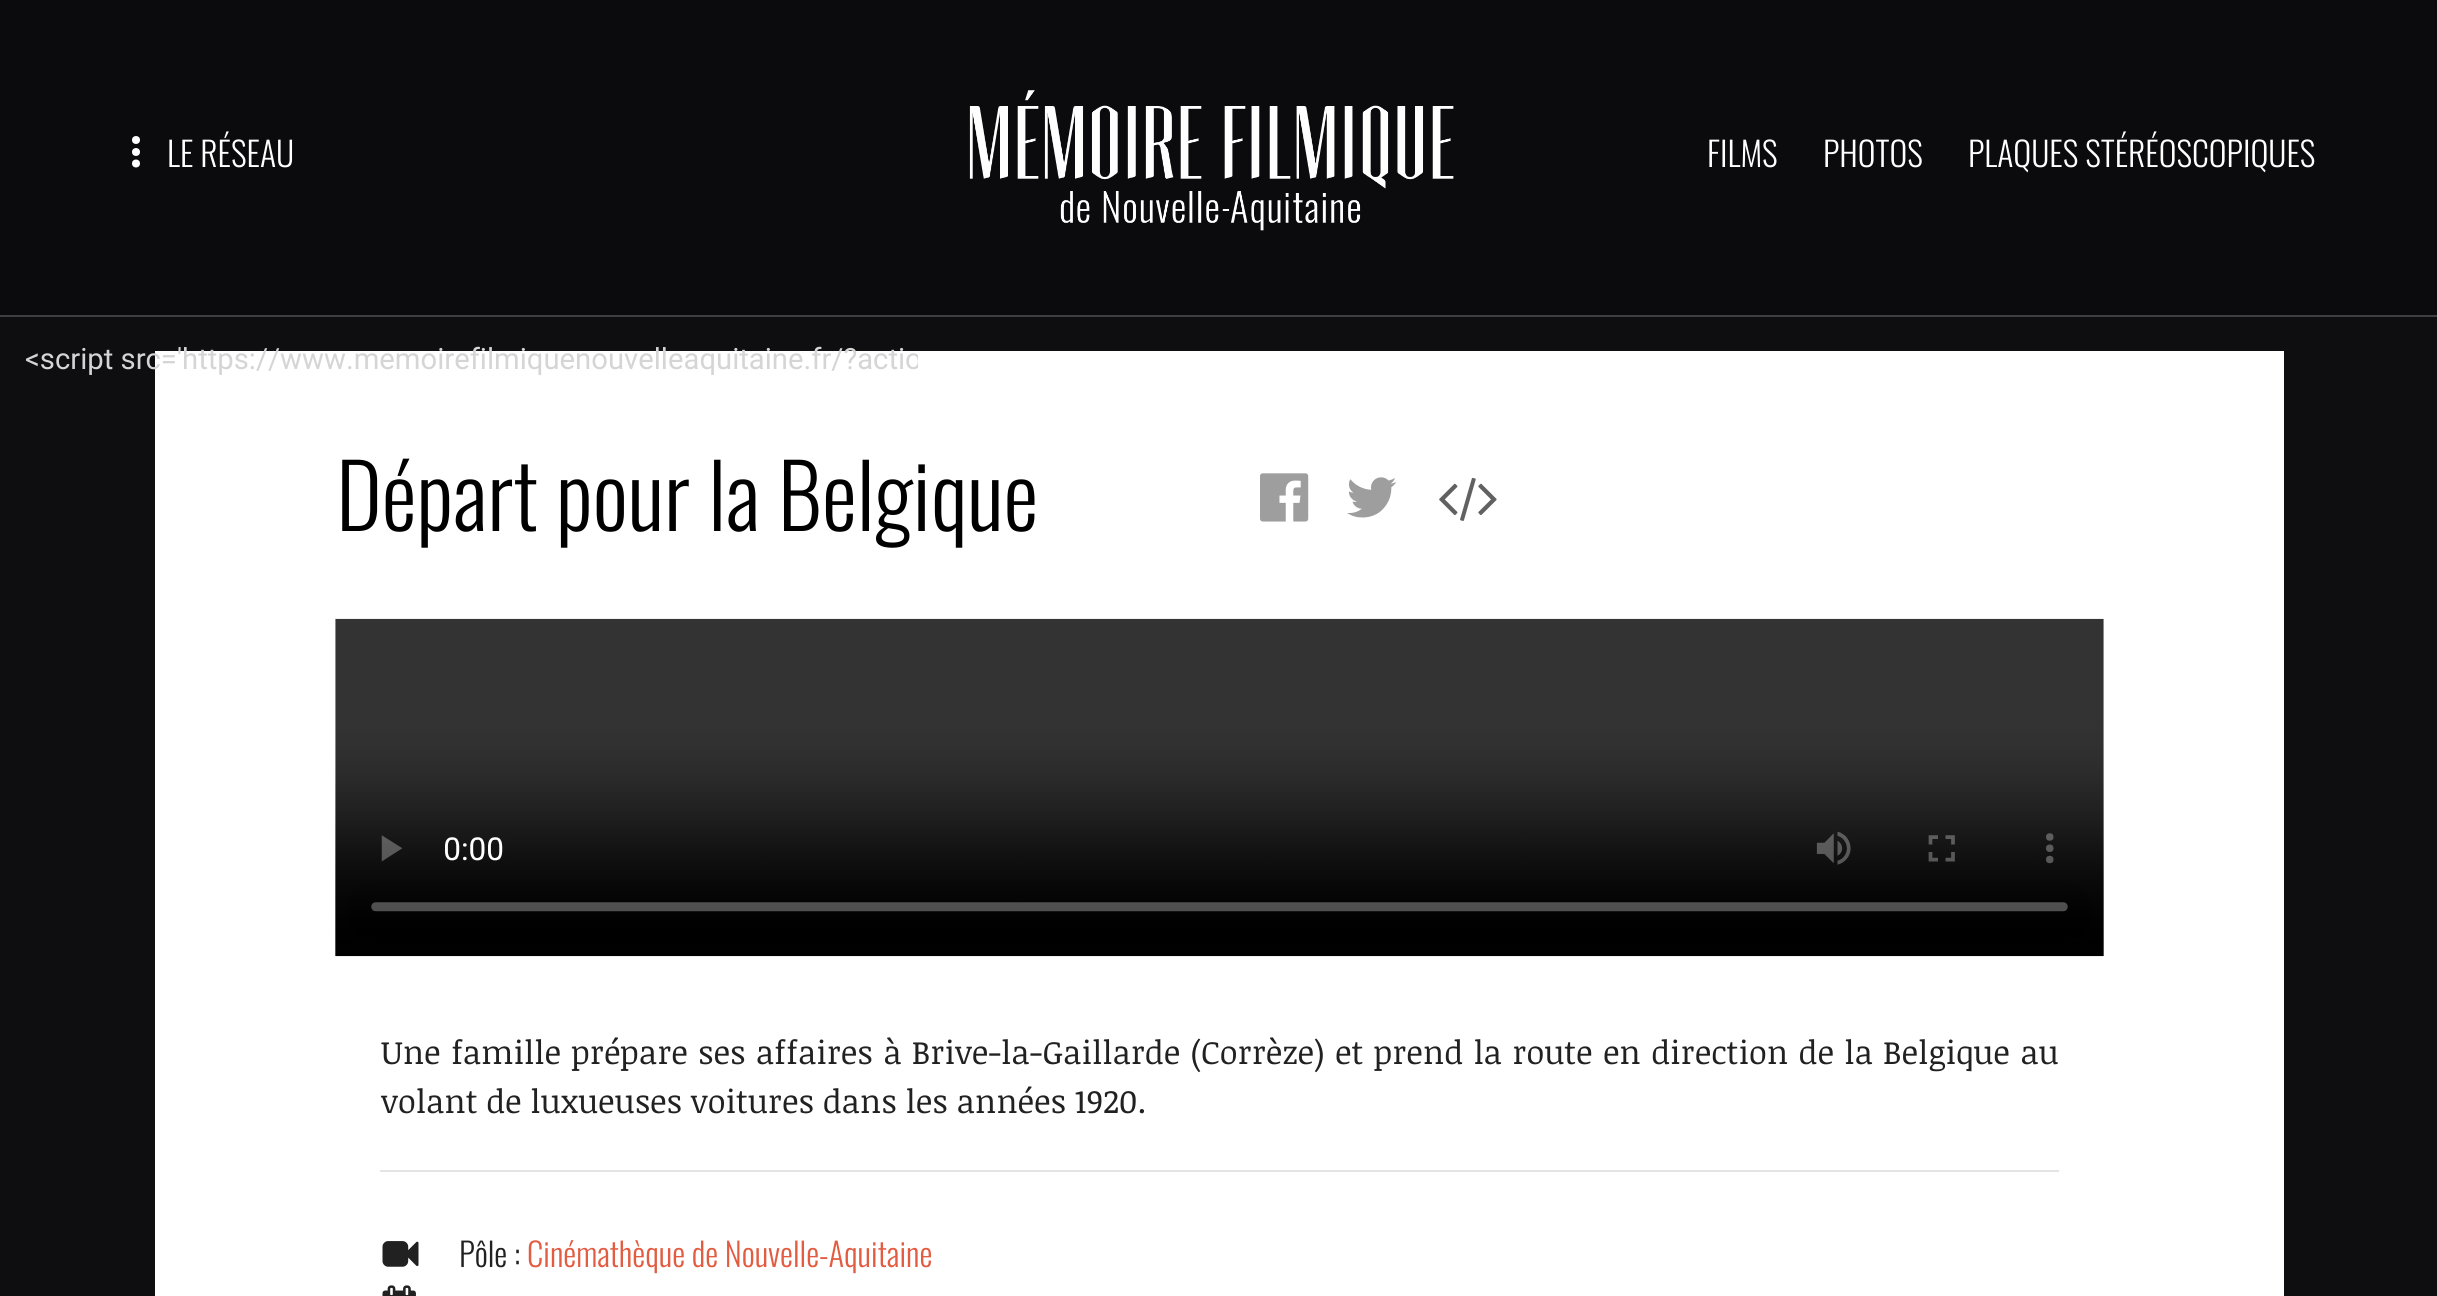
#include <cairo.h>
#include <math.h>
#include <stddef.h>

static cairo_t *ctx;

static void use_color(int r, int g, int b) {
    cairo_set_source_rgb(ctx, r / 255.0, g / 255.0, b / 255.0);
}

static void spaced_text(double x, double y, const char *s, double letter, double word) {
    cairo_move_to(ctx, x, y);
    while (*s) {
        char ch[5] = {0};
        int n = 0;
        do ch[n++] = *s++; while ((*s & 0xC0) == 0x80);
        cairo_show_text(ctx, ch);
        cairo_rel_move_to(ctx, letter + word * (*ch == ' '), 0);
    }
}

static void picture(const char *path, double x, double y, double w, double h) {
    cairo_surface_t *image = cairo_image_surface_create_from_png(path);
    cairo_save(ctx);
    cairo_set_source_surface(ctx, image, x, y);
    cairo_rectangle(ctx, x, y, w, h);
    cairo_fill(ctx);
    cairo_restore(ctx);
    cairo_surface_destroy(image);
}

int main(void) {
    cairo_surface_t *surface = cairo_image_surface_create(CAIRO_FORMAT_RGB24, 2437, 1296);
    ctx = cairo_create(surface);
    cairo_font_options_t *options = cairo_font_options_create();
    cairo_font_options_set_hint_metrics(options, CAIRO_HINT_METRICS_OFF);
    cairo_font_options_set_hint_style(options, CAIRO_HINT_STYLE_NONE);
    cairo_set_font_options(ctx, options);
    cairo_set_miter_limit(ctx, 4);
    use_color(14, 13, 15);
    cairo_paint(ctx);
    use_color(11, 10, 12);
    cairo_rectangle(ctx, 0, 0, 2437, 315);
    cairo_fill(ctx);
    use_color(64, 62, 65);
    cairo_rectangle(ctx, 0, 315, 2437, 2);
    cairo_fill(ctx);
    use_color(255, 255, 255);
    cairo_arc(ctx, 136, 140, 4, 0, 2 * M_PI);
    cairo_fill(ctx);
    cairo_select_font_face(ctx, "Oswald Light", CAIRO_FONT_SLANT_NORMAL, CAIRO_FONT_WEIGHT_NORMAL);
    cairo_set_font_size(ctx, 33.75);
    cairo_move_to(ctx, 167, 167);
    cairo_show_text(ctx, "LE RÉSEAU");
    cairo_new_path(ctx);
    cairo_arc(ctx, 136, 152, 4, 0, 2 * M_PI);
    cairo_fill(ctx);
    cairo_arc(ctx, 136, 163.5, 4, 0, 2 * M_PI);
    cairo_fill(ctx);
    picture("img1.png", 969, 90, 485, 141);
    cairo_move_to(ctx, 1707, 167);
    cairo_show_text(ctx, "FILMS");
    cairo_move_to(ctx, 1823, 167);
    cairo_show_text(ctx, "PHOTOS");
    cairo_move_to(ctx, 1968, 167);
    cairo_show_text(ctx, "PLAQUES STÉRÉOSCOPIQUES");
    cairo_rectangle(ctx, 155, 351, 2129, 945);
    cairo_fill(ctx);
    cairo_save(ctx);
    cairo_rectangle(ctx, 25, 342, 893, 34);
    cairo_clip(ctx);
    cairo_select_font_face(ctx, "Roboto", CAIRO_FONT_SLANT_NORMAL, CAIRO_FONT_WEIGHT_NORMAL);
    cairo_set_font_size(ctx, 29.25);
    use_color(213, 213, 213);
    cairo_move_to(ctx, 25, 369);
    cairo_show_text(ctx, "<script src='https://www.memoirefilmiquenouvelleaquitaine.fr/?actio");
    cairo_restore(ctx);
    cairo_set_font_size(ctx, 88);
    use_color(0, 0, 0);
    cairo_move_to(ctx, 336, 531);
    cairo_show_text(ctx, "Départ pour la Belgique");
    picture("img2.png", 1260, 473, 49, 49);
    picture("img3.png", 1347, 477, 50, 41);
    picture("img4.png", 1439, 477, 58, 44);
    picture("img5.png", 335, 618, 1769, 339);
    cairo_select_font_face(ctx, "Noticia Text", CAIRO_FONT_SLANT_NORMAL, CAIRO_FONT_WEIGHT_NORMAL);
    cairo_set_font_size(ctx, 32.62);
    use_color(33, 33, 33);
    spaced_text(381, 1064, "Une famille prépare ses affaires à Brive-la-Gaillarde (Corrèze) et prend la route en direction de la Belgique au", 0, 1.6);
    cairo_move_to(ctx, 381, 1113);
    cairo_show_text(ctx, "volant de luxueuses voitures dans les années 1920.");
    use_color(228, 228, 228);
    cairo_rectangle(ctx, 380, 1170, 1679, 2);
    cairo_fill(ctx);
    picture("img6.png", 382, 1241, 37, 26);
    cairo_select_font_face(ctx, "Oswald Light", CAIRO_FONT_SLANT_NORMAL, CAIRO_FONT_WEIGHT_NORMAL);
    use_color(33, 33, 33);
    cairo_move_to(ctx, 459, 1267);
    cairo_show_text(ctx, "Pôle :");
    use_color(226, 92, 66);
    cairo_move_to(ctx, 527, 1267);
    cairo_show_text(ctx, "Cinémathèque de Nouvelle-Aquitaine");
    picture("img7.png", 382, 1285, 34, 11);
    cairo_surface_write_to_png(surface, "result.png");
    cairo_font_options_destroy(options);
    cairo_destroy(ctx);
    cairo_surface_destroy(surface);
    return 0;
}
